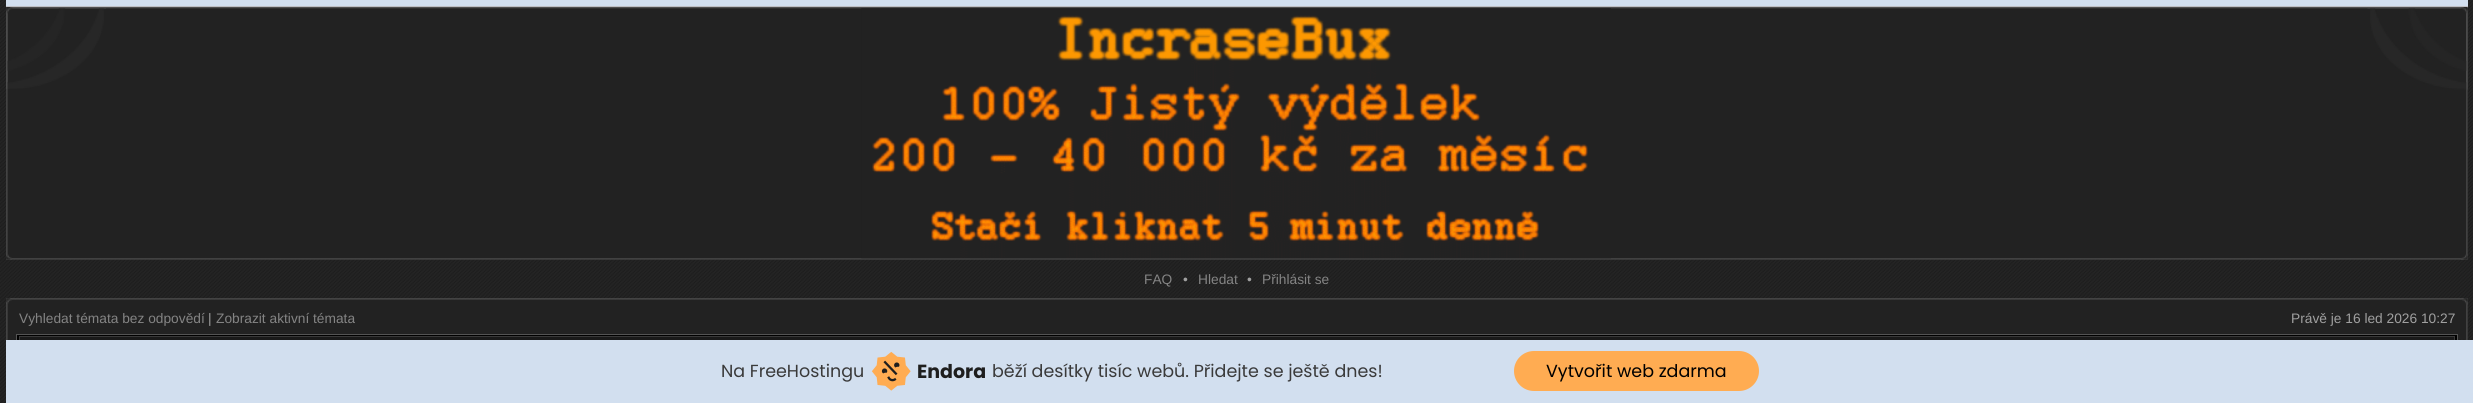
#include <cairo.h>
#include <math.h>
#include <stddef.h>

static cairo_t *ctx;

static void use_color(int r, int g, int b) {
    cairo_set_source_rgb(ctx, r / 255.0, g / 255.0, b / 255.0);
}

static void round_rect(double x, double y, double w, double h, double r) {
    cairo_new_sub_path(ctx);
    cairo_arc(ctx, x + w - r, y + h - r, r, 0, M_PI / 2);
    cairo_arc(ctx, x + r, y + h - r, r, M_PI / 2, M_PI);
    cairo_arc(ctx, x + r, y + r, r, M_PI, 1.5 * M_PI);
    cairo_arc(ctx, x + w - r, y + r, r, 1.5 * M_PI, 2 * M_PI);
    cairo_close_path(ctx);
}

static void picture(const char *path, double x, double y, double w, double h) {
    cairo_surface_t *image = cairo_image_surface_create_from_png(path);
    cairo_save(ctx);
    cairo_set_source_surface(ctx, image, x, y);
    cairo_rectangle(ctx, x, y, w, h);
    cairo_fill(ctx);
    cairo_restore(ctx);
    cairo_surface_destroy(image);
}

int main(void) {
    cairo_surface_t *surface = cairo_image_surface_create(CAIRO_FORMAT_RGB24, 2473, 403);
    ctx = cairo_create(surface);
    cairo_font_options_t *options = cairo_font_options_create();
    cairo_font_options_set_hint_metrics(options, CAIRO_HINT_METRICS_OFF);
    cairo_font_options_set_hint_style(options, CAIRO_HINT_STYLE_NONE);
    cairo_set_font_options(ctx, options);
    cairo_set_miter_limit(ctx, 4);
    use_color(255, 255, 255);
    cairo_paint(ctx);
    picture("img1.png", 0, 0, 2473, 403);
    use_color(210, 223, 239);
    cairo_rectangle(ctx, 6, 0, 2462, 8);
    cairo_fill(ctx);
    use_color(190, 191, 196);
    cairo_rectangle(ctx, 6, 6, 2462, 1);
    cairo_fill(ctx);
    use_color(34, 34, 34);
    cairo_rectangle(ctx, 6, 8, 2461, 251);
    cairo_fill(ctx);
    picture("img2.png", 6, 7, 2462, 2);
    picture("img3.png", 6, 7, 2, 253);
    picture("img4.png", 2466, 7, 2, 253);
    picture("img5.png", 6, 258, 2462, 2);
    picture("img6.png", 6, 254, 6, 6);
    picture("img7.png", 6, 7, 100, 82);
    picture("img8.png", 861, 8, 750, 251);
    picture("img9.png", 2461, 254, 7, 6);
    picture("img10.png", 2367, 7, 101, 83);
    cairo_select_font_face(ctx, "Liberation Sans", CAIRO_FONT_SLANT_NORMAL, CAIRO_FONT_WEIGHT_NORMAL);
    cairo_set_font_size(ctx, 13.75);
    use_color(132, 132, 132);
    cairo_move_to(ctx, 1144, 284);
    cairo_show_text(ctx, "FAQ");
    use_color(160, 160, 160);
    cairo_move_to(ctx, 1183, 284);
    cairo_show_text(ctx, "•");
    use_color(132, 132, 132);
    cairo_move_to(ctx, 1198, 284);
    cairo_show_text(ctx, "Hledat");
    use_color(160, 160, 160);
    cairo_move_to(ctx, 1247, 284);
    cairo_show_text(ctx, "•");
    use_color(132, 132, 132);
    cairo_move_to(ctx, 1262, 284);
    cairo_show_text(ctx, "Přihlásit se");
    use_color(34, 34, 34);
    cairo_rectangle(ctx, 6, 300, 2461, 39);
    cairo_fill(ctx);
    picture("img11.png", 6, 298, 2462, 2);
    picture("img12.png", 6, 298, 2, 42);
    picture("img13.png", 2466, 298, 2, 42);
    picture("img14.png", 6, 298, 6, 6);
    picture("img15.png", 2462, 298, 6, 7);
    use_color(132, 132, 132);
    cairo_move_to(ctx, 19, 323);
    cairo_show_text(ctx, "Vyhledat témata bez odpovědí");
    use_color(160, 160, 160);
    cairo_move_to(ctx, 208, 323);
    cairo_show_text(ctx, "|");
    use_color(132, 132, 132);
    cairo_move_to(ctx, 216, 323);
    cairo_show_text(ctx, "Zobrazit aktivní témata");
    use_color(160, 160, 160);
    cairo_move_to(ctx, 2291, 323);
    cairo_show_text(ctx, "Právě je 16 led 2026 10:27");
    use_color(0, 0, 0);
    cairo_rectangle(ctx, 17, 335, 2440, 5);
    cairo_fill(ctx);
    cairo_rectangle(ctx, 16.5, 334.5, 2441, 30);
    use_color(84, 84, 84);
    cairo_set_line_width(ctx, 1);
    cairo_stroke(ctx);
    use_color(26, 26, 26);
    cairo_rectangle(ctx, 20, 337, 2434, 3);
    cairo_fill(ctx);
    cairo_rectangle(ctx, 19.5, 336.5, 2435, 26);
    use_color(57, 57, 57);
    cairo_stroke(ctx);
    use_color(210, 223, 239);
    cairo_rectangle(ctx, 6, 340, 2467, 63);
    cairo_fill(ctx);
    cairo_select_font_face(ctx, "Poppins", CAIRO_FONT_SLANT_NORMAL, CAIRO_FONT_WEIGHT_NORMAL);
    cairo_set_font_size(ctx, 17.5);
    use_color(58, 58, 58);
    cairo_move_to(ctx, 721, 377);
    cairo_show_text(ctx, "Na FreeHostingu");
    picture("img16.png", 871, 351, 40, 40);
    cairo_select_font_face(ctx, "Poppins", CAIRO_FONT_SLANT_NORMAL, CAIRO_FONT_WEIGHT_BOLD);
    cairo_set_font_size(ctx, 19);
    use_color(30, 30, 30);
    cairo_move_to(ctx, 917, 378);
    cairo_show_text(ctx, "Endora");
    cairo_select_font_face(ctx, "Poppins", CAIRO_FONT_SLANT_NORMAL, CAIRO_FONT_WEIGHT_NORMAL);
    cairo_set_font_size(ctx, 17.5);
    use_color(58, 58, 58);
    cairo_move_to(ctx, 992, 377);
    cairo_show_text(ctx, "běží desítky tisíc webů. Přidejte se ještě dnes!");
    use_color(255, 172, 82);
    round_rect(1514, 351, 245, 40, 20);
    cairo_fill(ctx);
    use_color(0, 0, 0);
    cairo_move_to(ctx, 1546, 377);
    cairo_show_text(ctx, "Vytvořit web zdarma");
    cairo_surface_write_to_png(surface, "result.png");
    cairo_font_options_destroy(options);
    cairo_destroy(ctx);
    cairo_surface_destroy(surface);
    return 0;
}
